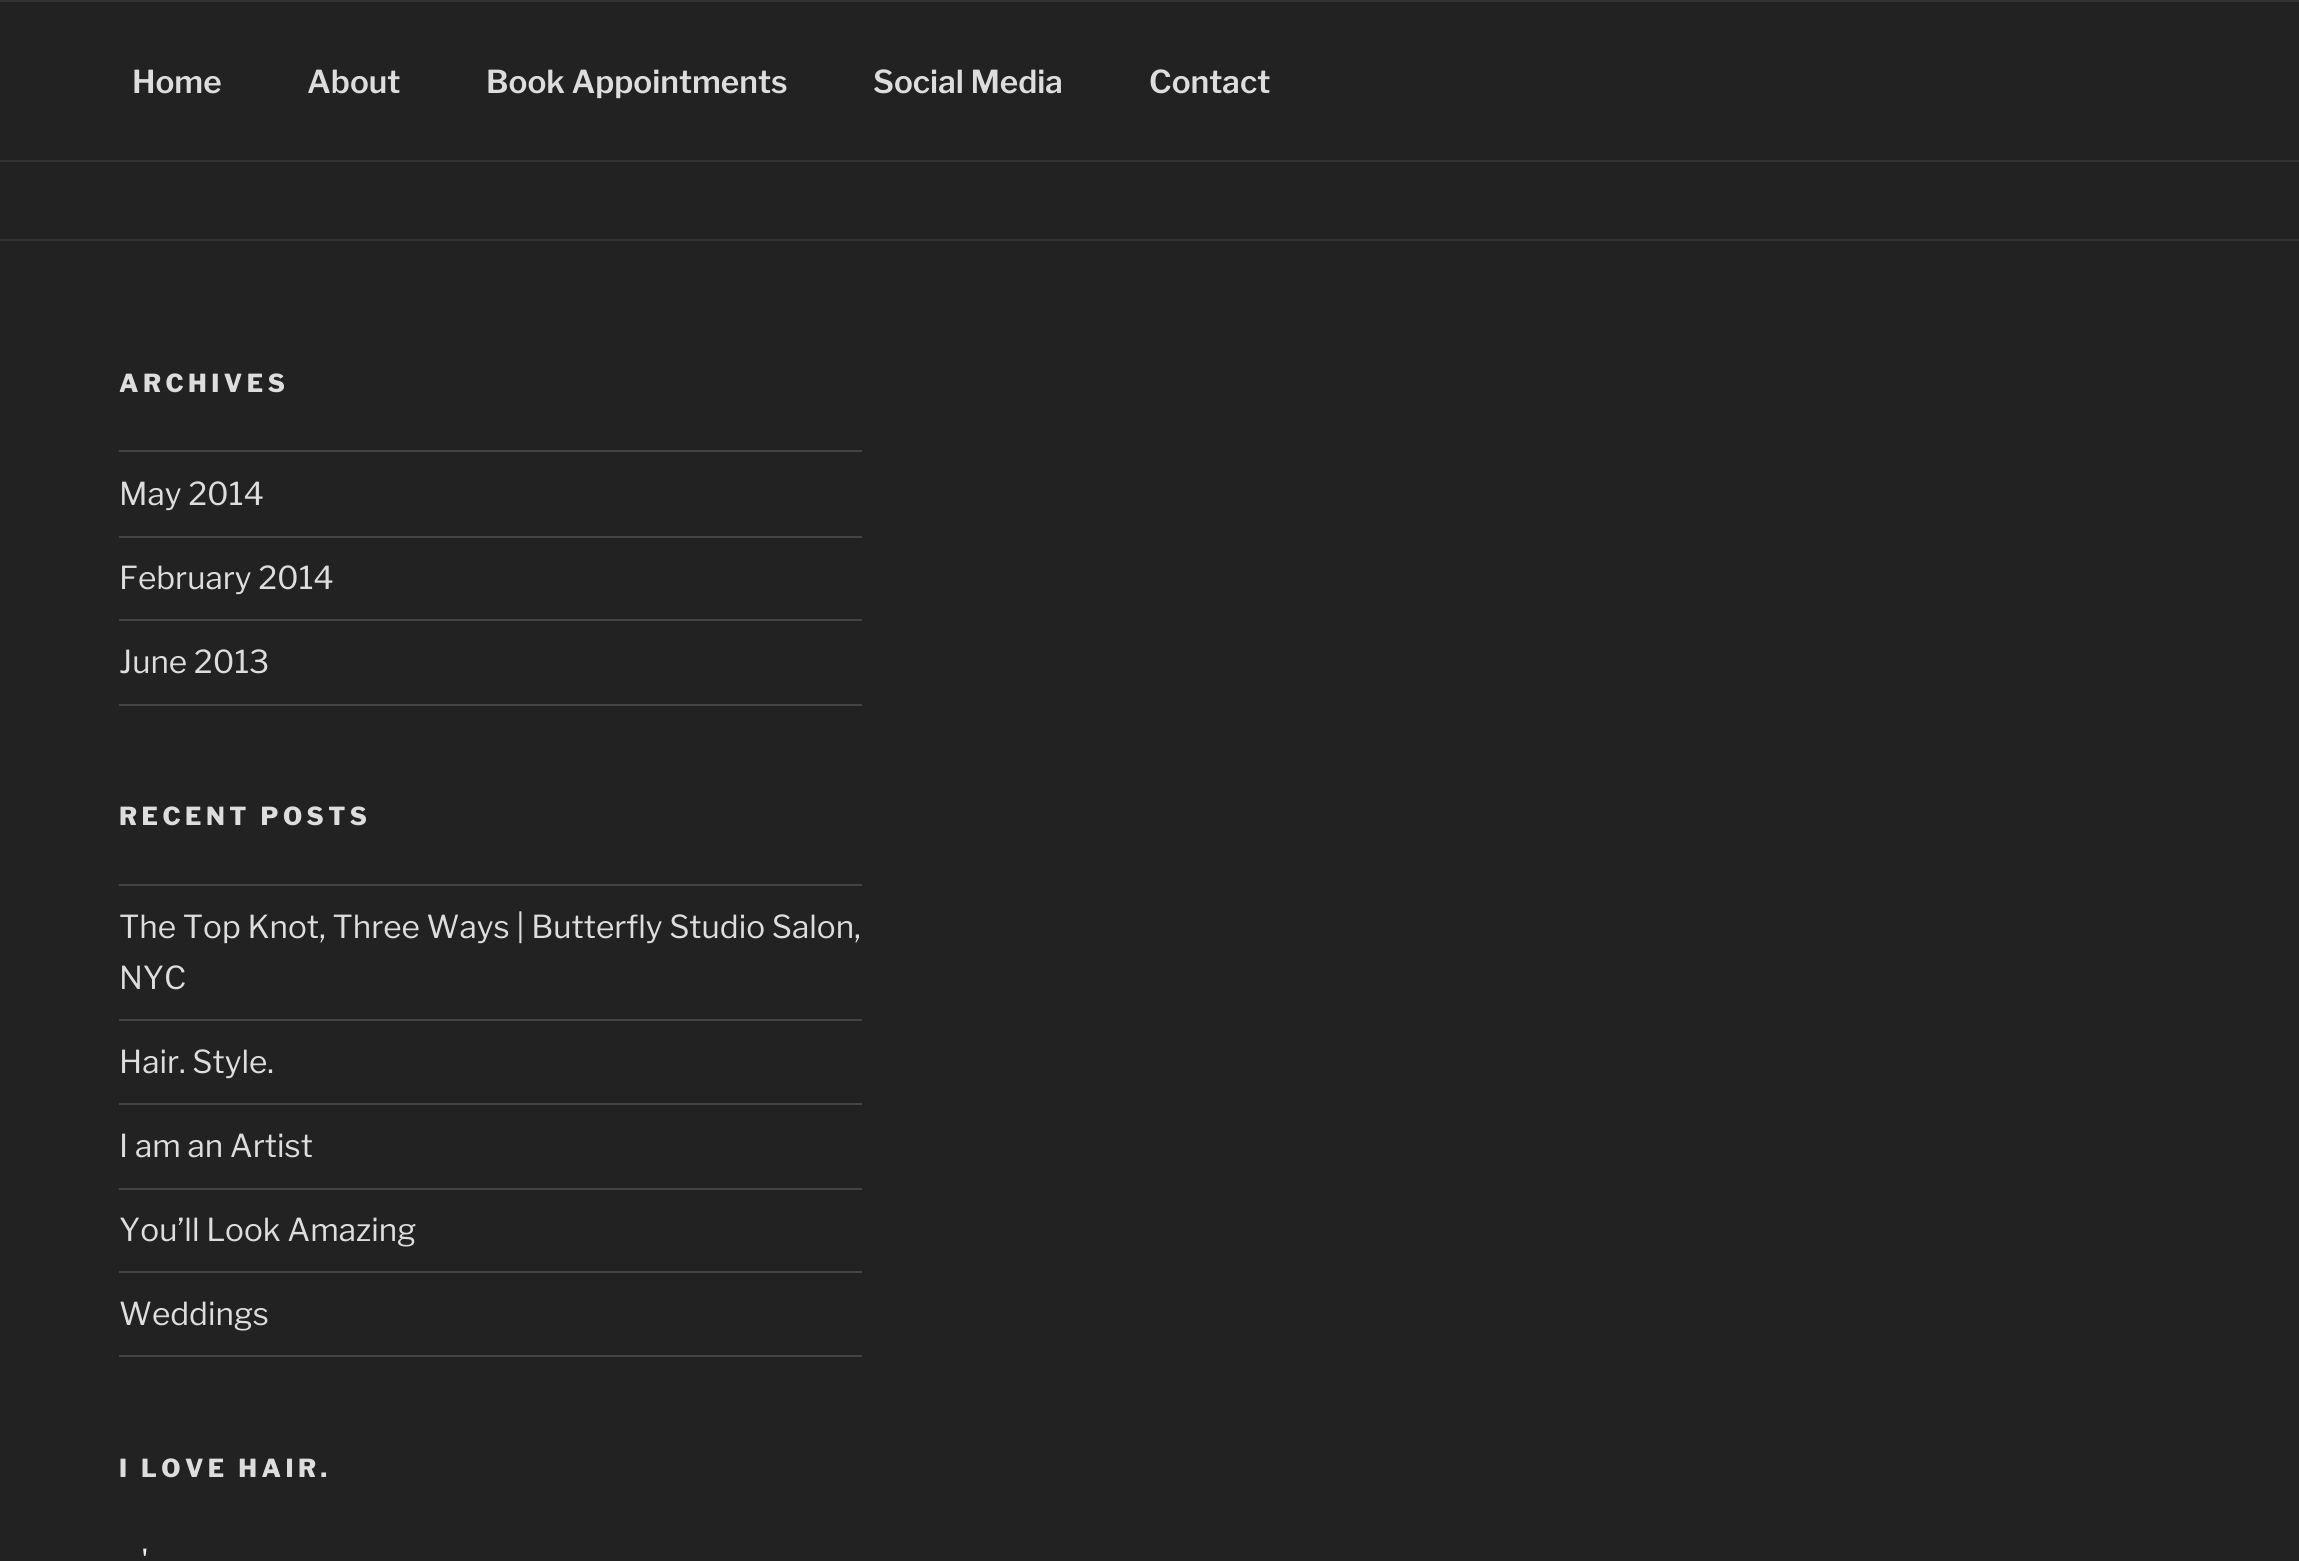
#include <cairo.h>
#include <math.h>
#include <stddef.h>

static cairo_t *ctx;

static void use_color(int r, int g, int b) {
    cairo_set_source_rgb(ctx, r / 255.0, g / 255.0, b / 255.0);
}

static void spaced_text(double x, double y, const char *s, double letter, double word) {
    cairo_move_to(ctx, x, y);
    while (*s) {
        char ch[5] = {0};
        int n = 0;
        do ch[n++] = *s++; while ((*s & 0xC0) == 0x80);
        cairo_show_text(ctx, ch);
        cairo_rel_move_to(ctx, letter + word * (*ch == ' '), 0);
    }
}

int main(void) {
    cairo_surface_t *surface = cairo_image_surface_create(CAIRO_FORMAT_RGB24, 2299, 1561);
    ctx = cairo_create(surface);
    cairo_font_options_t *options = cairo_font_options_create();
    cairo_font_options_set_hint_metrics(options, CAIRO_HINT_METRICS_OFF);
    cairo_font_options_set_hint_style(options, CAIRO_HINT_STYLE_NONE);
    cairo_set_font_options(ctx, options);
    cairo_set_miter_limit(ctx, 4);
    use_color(34, 34, 34);
    cairo_paint(ctx);
    use_color(51, 51, 51);
    cairo_rectangle(ctx, 0, 0, 2299, 2);
    cairo_fill(ctx);
    cairo_rectangle(ctx, 0, 160, 2299, 2);
    cairo_fill(ctx);
    cairo_select_font_face(ctx, "Libre Franklin SemiBold", CAIRO_FONT_SLANT_NORMAL, CAIRO_FONT_WEIGHT_NORMAL);
    cairo_set_font_size(ctx, 31.5);
    use_color(221, 221, 221);
    cairo_move_to(ctx, 132, 93);
    cairo_show_text(ctx, "Home");
    cairo_move_to(ctx, 307, 93);
    cairo_show_text(ctx, "About");
    cairo_move_to(ctx, 486, 93);
    cairo_show_text(ctx, "Book Appointments");
    cairo_move_to(ctx, 873, 93);
    cairo_show_text(ctx, "Social Media");
    cairo_move_to(ctx, 1149, 93);
    cairo_show_text(ctx, "Contact");
    use_color(51, 51, 51);
    cairo_rectangle(ctx, 0, 239, 2299, 2);
    cairo_fill(ctx);
    cairo_select_font_face(ctx, "Libre Franklin ExtraBold", CAIRO_FONT_SLANT_NORMAL, CAIRO_FONT_WEIGHT_NORMAL);
    cairo_set_font_size(ctx, 24.75);
    use_color(221, 221, 221);
    spaced_text(119, 392, "ARCHIVES", 4.5, 0);
    use_color(68, 68, 68);
    cairo_rectangle(ctx, 119, 450, 743, 2);
    cairo_fill(ctx);
    cairo_rectangle(ctx, 119, 536, 743, 2);
    cairo_fill(ctx);
    cairo_select_font_face(ctx, "Libre Franklin", CAIRO_FONT_SLANT_NORMAL, CAIRO_FONT_WEIGHT_NORMAL);
    cairo_set_font_size(ctx, 31.5);
    use_color(221, 221, 221);
    cairo_move_to(ctx, 119, 505);
    cairo_show_text(ctx, "May 2014");
    use_color(68, 68, 68);
    cairo_rectangle(ctx, 119, 619, 743, 2);
    cairo_fill(ctx);
    use_color(221, 221, 221);
    cairo_move_to(ctx, 119, 589);
    cairo_show_text(ctx, "February 2014");
    use_color(68, 68, 68);
    cairo_rectangle(ctx, 119, 704, 743, 2);
    cairo_fill(ctx);
    use_color(221, 221, 221);
    cairo_move_to(ctx, 119, 673);
    cairo_show_text(ctx, "June 2013");
    cairo_select_font_face(ctx, "Libre Franklin ExtraBold", CAIRO_FONT_SLANT_NORMAL, CAIRO_FONT_WEIGHT_NORMAL);
    cairo_set_font_size(ctx, 24.75);
    spaced_text(119, 825, "RECENT POSTS", 4.5, 0);
    use_color(68, 68, 68);
    cairo_rectangle(ctx, 119, 884, 743, 2);
    cairo_fill(ctx);
    cairo_rectangle(ctx, 119, 1019, 743, 2);
    cairo_fill(ctx);
    cairo_select_font_face(ctx, "Libre Franklin", CAIRO_FONT_SLANT_NORMAL, CAIRO_FONT_WEIGHT_NORMAL);
    cairo_set_font_size(ctx, 31.5);
    use_color(221, 221, 221);
    cairo_move_to(ctx, 119, 938);
    cairo_show_text(ctx, "The Top Knot, Three Ways | Butterfly Studio Salon,");
    cairo_move_to(ctx, 119, 989);
    cairo_show_text(ctx, "NYC");
    use_color(68, 68, 68);
    cairo_rectangle(ctx, 119, 1103, 743, 2);
    cairo_fill(ctx);
    use_color(221, 221, 221);
    cairo_move_to(ctx, 119, 1073);
    cairo_show_text(ctx, "Hair. Style.");
    use_color(68, 68, 68);
    cairo_rectangle(ctx, 119, 1188, 743, 2);
    cairo_fill(ctx);
    use_color(221, 221, 221);
    cairo_move_to(ctx, 119, 1157);
    cairo_show_text(ctx, "I am an Artist");
    use_color(68, 68, 68);
    cairo_rectangle(ctx, 119, 1271, 743, 2);
    cairo_fill(ctx);
    use_color(221, 221, 221);
    cairo_move_to(ctx, 119, 1241);
    cairo_show_text(ctx, "You’ll Look Amazing");
    use_color(68, 68, 68);
    cairo_rectangle(ctx, 119, 1355, 743, 2);
    cairo_fill(ctx);
    use_color(221, 221, 221);
    cairo_move_to(ctx, 119, 1325);
    cairo_show_text(ctx, "Weddings");
    cairo_select_font_face(ctx, "Libre Franklin ExtraBold", CAIRO_FONT_SLANT_NORMAL, CAIRO_FONT_WEIGHT_NORMAL);
    cairo_set_font_size(ctx, 24.75);
    spaced_text(119, 1477, "I LOVE HAIR.", 4.5, 0);
    cairo_select_font_face(ctx, "Libre Franklin", CAIRO_FONT_SLANT_NORMAL, CAIRO_FONT_WEIGHT_NORMAL);
    cairo_set_font_size(ctx, 31.5);
    use_color(238, 238, 238);
    cairo_move_to(ctx, 141, 1572);
    cairo_show_text(ctx, "'");
    cairo_surface_write_to_png(surface, "result.png");
    cairo_font_options_destroy(options);
    cairo_destroy(ctx);
    cairo_surface_destroy(surface);
    return 0;
}
